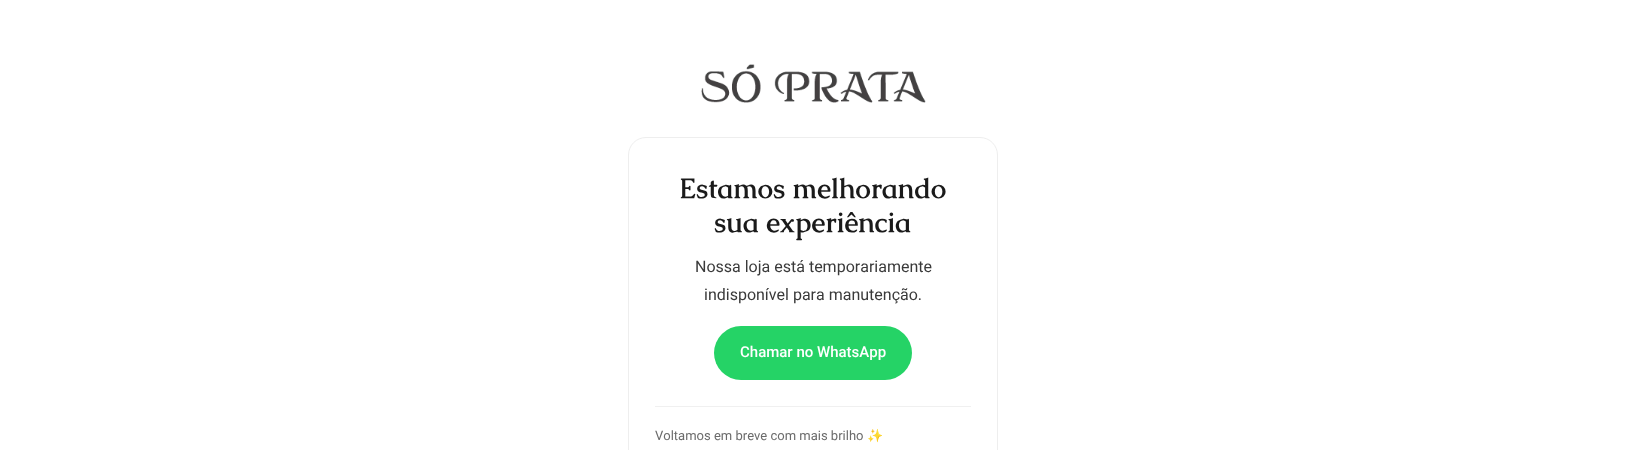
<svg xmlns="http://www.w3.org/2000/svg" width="1626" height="450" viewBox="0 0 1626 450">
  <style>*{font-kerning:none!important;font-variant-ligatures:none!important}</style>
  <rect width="100%" height="100%" fill="#ffffff"/>
  <image x="701" y="64" width="225" height="39" href="img1.png"/>
  <rect x="628.5" y="137.5" width="369" height="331" rx="17.5" fill="none" stroke="#eeeeee"/>
  <text x="679" y="198" font-family="Caudex" font-size="28" font-weight="bold" fill="#1a1a1a">Estamos melhorando</text>
  <text x="714" y="232" font-family="Caudex" font-size="28" font-weight="bold" fill="#1a1a1a">sua experiência</text>
  <text x="695" y="272" font-family="Roboto" font-size="16" fill="#3a3a3a">Nossa loja está temporariamente</text>
  <text x="704" y="300" font-family="Roboto" font-size="16" fill="#3a3a3a">indisponível para manutenção.</text>
  <rect x="714" y="326" width="198" height="54" rx="27" fill="#25d366"/>
  <text x="740" y="357" font-family="Roboto" font-size="15" font-weight="500" fill="#ffffff">Chamar no WhatsApp</text>
  <rect x="655" y="406" width="316" height="1" fill="#f0f0f0"/>
  <text x="655" y="440" font-family="Roboto" font-size="13" fill="#6b6b6b">Voltamos em breve com mais brilho</text>
  <text x="867" y="440" font-family="Noto Color Emoji" font-size="13" fill="#6b6b6b">✨</text>
</svg>
